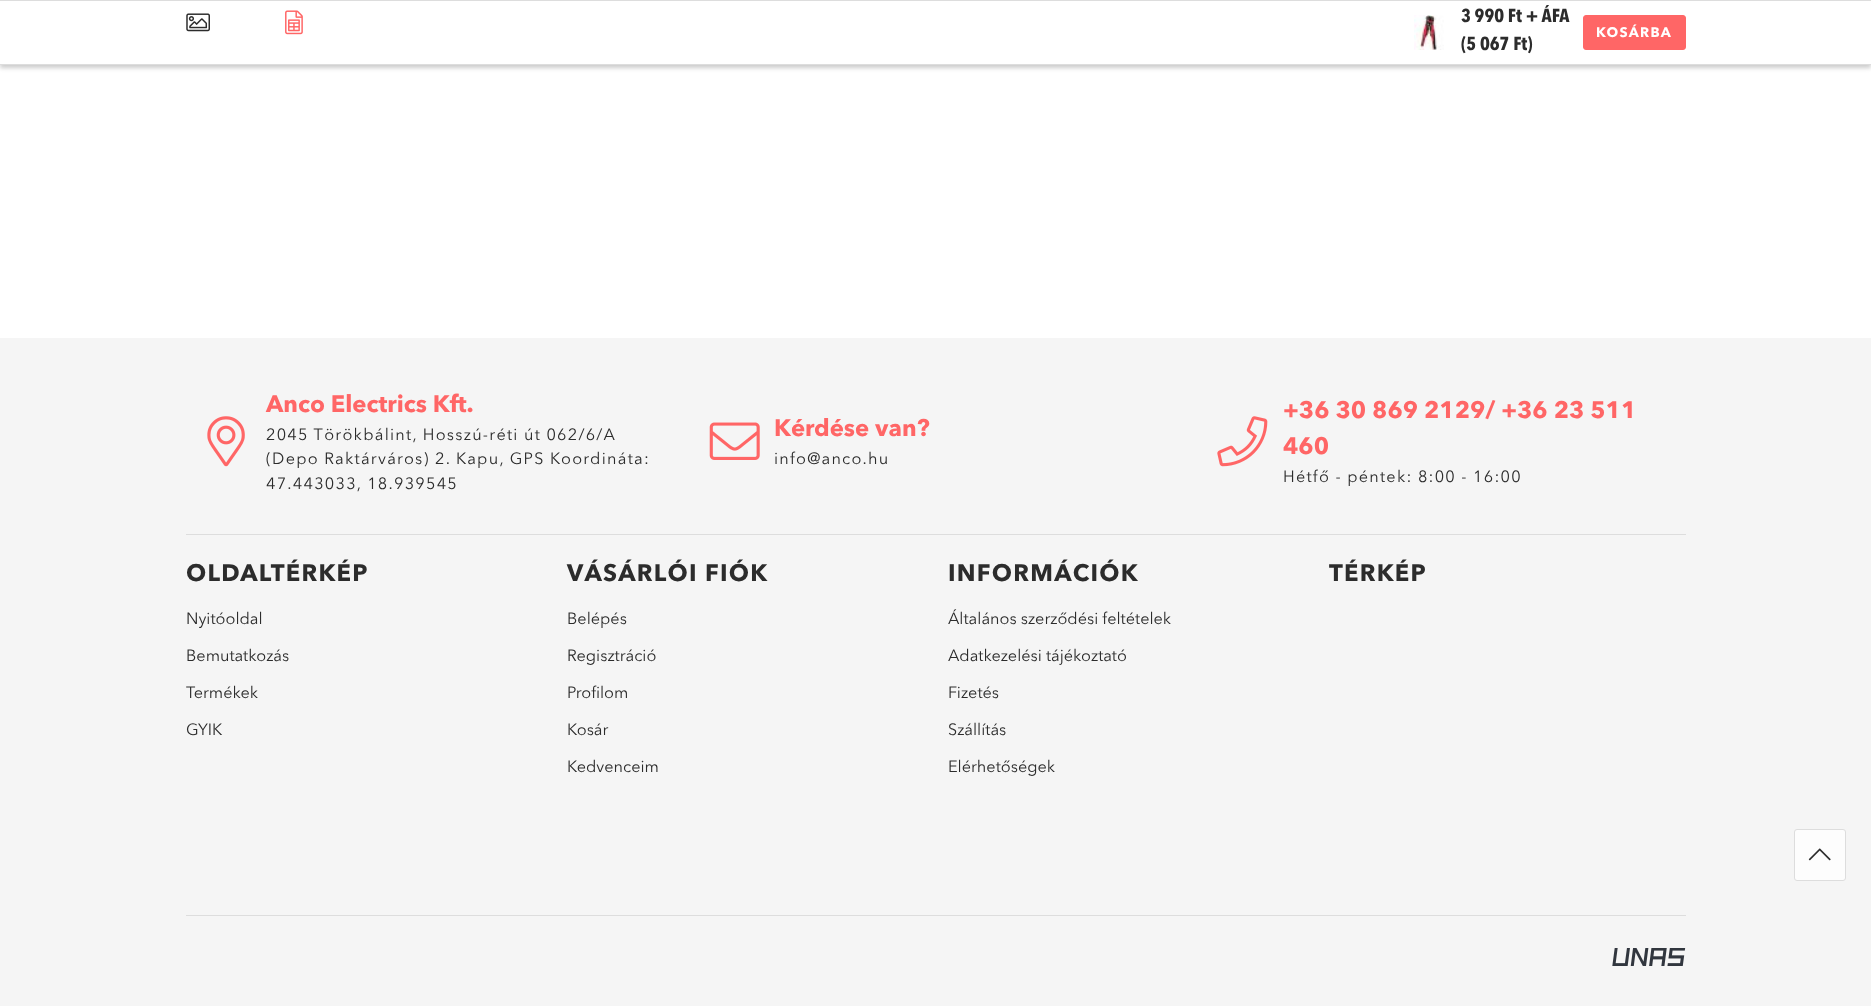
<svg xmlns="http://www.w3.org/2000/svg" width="1871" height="1006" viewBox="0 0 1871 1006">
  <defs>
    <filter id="blur1" x="-50%" y="-200%" width="200%" height="500%"><feGaussianBlur stdDeviation="2"/></filter>
  </defs>
  <rect width="100%" height="100%" fill="#ffffff"/>
  <rect x="0" y="3" width="1871" height="65" fill="#000000" fill-opacity="0.2" filter="url(#blur1)"/>
  <rect x="0" y="1" width="1871" height="63" fill="#ffffff"/>
  <rect x="0" y="0" width="1871" height="1" fill="#dddddd"/>
  <rect x="0" y="64" width="1871" height="1" fill="#dddddd"/>
  <image x="186" y="13" width="24" height="19" href="img1.png"/>
  <image x="285" y="10" width="18" height="25" href="img2.png"/>
  <image x="1414" y="15" width="30" height="35" href="img3.png"/>
  <text x="1461" y="22" font-family="Avenir Next" font-size="18.75" font-weight="bold" fill="#2c2c2c">3 990 Ft + ÁFA</text>
  <text x="1461" y="50" font-family="Avenir Next" font-size="18.75" font-weight="bold" fill="#2c2c2c">(5 067 Ft)</text>
  <rect x="1583.5" y="15.5" width="102" height="34" rx="2.5" fill="#ff6666" stroke="#ff6666"/>
  <text x="1596" y="37" font-family="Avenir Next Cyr" font-size="13.75" font-weight="bold" letter-spacing="1.25" fill="#ffffff">KOSÁRBA</text>
  <rect x="0" y="338" width="1871" height="668" fill="#f5f5f5"/>
  <image x="207" y="416" width="38" height="51" href="img4.png"/>
  <text x="266" y="412" font-family="Avenir Next Cyr" font-size="23.75" font-weight="bold" fill="#ff6666">Anco Electrics Kft.</text>
  <text x="266" y="440" font-family="Avenir Next Cyr" font-size="16.25" letter-spacing="1.25" fill="#2c2c2c">2045 Törökbálint, Hosszú-réti út 062/6/A</text>
  <text x="266" y="464" font-family="Avenir Next Cyr" font-size="16.25" letter-spacing="1.25" fill="#2c2c2c">(Depo Raktárváros) 2. Kapu, GPS Koordináta:</text>
  <text x="266" y="489" font-family="Avenir Next Cyr" font-size="16.25" letter-spacing="1.25" fill="#2c2c2c">47.443033, 18.939545</text>
  <image x="709" y="422" width="51" height="38" href="img5.png"/>
  <text x="774" y="436" font-family="Avenir Next Cyr" font-size="23.75" font-weight="bold" fill="#ff6666">Kérdése van?</text>
  <text x="774" y="464" font-family="Avenir Next Cyr" font-size="16.25" letter-spacing="1.25" fill="#2c2c2c">info@anco.hu</text>
  <image x="1217" y="416" width="51" height="51" href="img6.png"/>
  <text x="1283" y="418" font-family="Avenir Next Cyr" font-size="23.75" font-weight="bold" fill="#ff6666">+36 30 869 2129/ +36 23 511</text>
  <text x="1283" y="454" font-family="Avenir Next Cyr" font-size="23.75" font-weight="bold" fill="#ff6666">460</text>
  <text x="1283" y="482" font-family="Avenir Next Cyr" font-size="16.25" letter-spacing="1.25" fill="#2c2c2c">Hétfő - péntek: 8:00 - 16:00</text>
  <rect x="186" y="534" width="1500" height="1" fill="#dddddd"/>
  <text x="186" y="581" font-family="Avenir Next Cyr" font-size="23.75" font-weight="bold" letter-spacing="1.25" fill="#2c2c2c">OLDALTÉRKÉP</text>
  <text x="186" y="624" font-family="Avenir Next Cyr" font-size="16.25" fill="#2c2c2c">Nyitóoldal</text>
  <text x="186" y="661" font-family="Avenir Next Cyr" font-size="16.25" fill="#2c2c2c">Bemutatkozás</text>
  <text x="186" y="698" font-family="Avenir Next Cyr" font-size="16.25" fill="#2c2c2c">Termékek</text>
  <text x="186" y="735" font-family="Avenir Next Cyr" font-size="16.25" fill="#2c2c2c">GYIK</text>
  <text x="567" y="581" font-family="Avenir Next Cyr" font-size="23.75" font-weight="bold" letter-spacing="1.25" fill="#2c2c2c">VÁSÁRLÓI FIÓK</text>
  <text x="567" y="624" font-family="Avenir Next Cyr" font-size="16.25" fill="#2c2c2c">Belépés</text>
  <text x="567" y="661" font-family="Avenir Next Cyr" font-size="16.25" fill="#2c2c2c">Regisztráció</text>
  <text x="567" y="698" font-family="Avenir Next Cyr" font-size="16.25" fill="#2c2c2c">Profilom</text>
  <text x="567" y="735" font-family="Avenir Next Cyr" font-size="16.25" fill="#2c2c2c">Kosár</text>
  <text x="567" y="772" font-family="Avenir Next Cyr" font-size="16.25" fill="#2c2c2c">Kedvenceim</text>
  <text x="948" y="581" font-family="Avenir Next Cyr" font-size="23.75" font-weight="bold" letter-spacing="1.25" fill="#2c2c2c">INFORMÁCIÓK</text>
  <text x="948" y="624" font-family="Avenir Next Cyr" font-size="16.25" fill="#2c2c2c">Általános szerződési feltételek</text>
  <text x="948" y="661" font-family="Avenir Next Cyr" font-size="16.25" fill="#2c2c2c">Adatkezelési tájékoztató</text>
  <text x="948" y="698" font-family="Avenir Next Cyr" font-size="16.25" fill="#2c2c2c">Fizetés</text>
  <text x="948" y="735" font-family="Avenir Next Cyr" font-size="16.25" fill="#2c2c2c">Szállítás</text>
  <text x="948" y="772" font-family="Avenir Next Cyr" font-size="16.25" fill="#2c2c2c">Elérhetőségek</text>
  <text x="1329" y="581" font-family="Avenir Next Cyr" font-size="23.75" font-weight="bold" letter-spacing="1.25" fill="#2c2c2c">TÉRKÉP</text>
  <rect x="186" y="915" width="1500" height="1" fill="#dddddd"/>
  <image x="1612" y="948" width="74" height="18" href="img7.png"/>
  <rect x="1794.5" y="829.5" width="51" height="51" rx="2.5" fill="#fdfdfd" stroke="#dddddd"/>
  <image x="1808" y="848" width="23" height="13" href="img8.png"/>
</svg>
